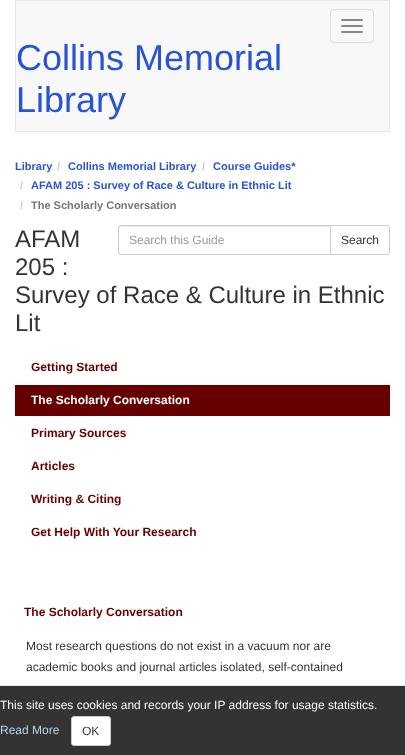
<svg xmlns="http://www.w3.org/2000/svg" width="405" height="755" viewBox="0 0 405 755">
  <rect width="100%" height="100%" fill="#ffffff"/>
  <rect x="15.5" y="0.5" width="374" height="131" fill="#f8f8f8" stroke="#e7e7e7"/>
  <rect x="330.5" y="9.5" width="43" height="33" rx="3.5" fill="none" stroke="#dddddd"/>
  <rect x="341" y="19" width="22" height="2" rx="1" fill="#888888"/>
  <rect x="341" y="25" width="22" height="2" rx="1" fill="#888888"/>
  <rect x="341" y="31" width="22" height="2" rx="1" fill="#888888"/>
  <text x="16" y="70" font-family="Liberation Sans" font-size="36" fill="#2954d1">Collins Memorial</text>
  <text x="16" y="112" font-family="Liberation Sans" font-size="36" fill="#2954d1">Library</text>
  <text x="15" y="170" font-family="Liberation Sans" font-size="11" font-weight="bold" fill="#2954d1">Library</text>
  <text x="57" y="170" font-family="Liberation Sans" font-size="11" font-weight="bold" fill="#cccccc">/</text>
  <text x="68" y="170" font-family="Liberation Sans" font-size="11" font-weight="bold" fill="#2954d1">Collins Memorial Library</text>
  <text x="202" y="170" font-family="Liberation Sans" font-size="11" font-weight="bold" fill="#cccccc">/</text>
  <text x="213" y="170" font-family="Liberation Sans" font-size="11" font-weight="bold" fill="#2954d1">Course Guides*</text>
  <text x="20" y="189" font-family="Liberation Sans" font-size="11" font-weight="bold" fill="#cccccc">/</text>
  <text x="31" y="189" font-family="Liberation Sans" font-size="11" font-weight="bold" fill="#2954d1">AFAM 205 : Survey of Race &amp; Culture in Ethnic Lit</text>
  <text x="20" y="209" font-family="Liberation Sans" font-size="11" font-weight="bold" fill="#cccccc">/</text>
  <text x="31" y="209" font-family="Liberation Sans" font-size="11" font-weight="bold" fill="#767676">The Scholarly Conversation</text>
  <text x="15" y="247" font-family="Liberation Sans" font-size="24" fill="#333333">AFAM</text>
  <text x="15" y="275" font-family="Liberation Sans" font-size="24" fill="#333333">205 :</text>
  <text x="15" y="303" font-family="Liberation Sans" font-size="24" fill="#333333">Survey of Race &amp; Culture in Ethnic</text>
  <text x="15" y="331" font-family="Liberation Sans" font-size="24" fill="#333333">Lit</text>
  <path d="M121 227H330V226H121L120 227L119 229C119 228 120 227 121 227Z" fill="#ececec"/>
  <path d="M121 225.5H330.5V254.5H121C119.5 254.5 118.5 253.5 118.5 252V228C118.5 226.5 119.5 225.5 121 225.5Z" fill="none" stroke="#cccccc"/>
  <text x="129" y="244" font-family="Liberation Sans" font-size="12" fill="#999999">Search this Guide</text>
  <path d="M330.5 225.5H387C388.5 225.5 389.5 226.5 389.5 228V252C389.5 253.5 388.5 254.5 387 254.5H330.5Z" fill="#ffffff" stroke="#cccccc"/>
  <text x="341" y="244" font-family="Liberation Sans" font-size="12" fill="#333333">Search</text>
  <text x="31" y="371" font-family="Liberation Sans" font-size="12" font-weight="bold" fill="#660000">Getting Started</text>
  <rect x="15" y="385" width="375" height="31" fill="#660000"/>
  <text x="31" y="404" font-family="Liberation Sans" font-size="12" font-weight="bold" fill="#ffffff">The Scholarly Conversation</text>
  <text x="31" y="437" font-family="Liberation Sans" font-size="12" font-weight="bold" fill="#660000">Primary Sources</text>
  <text x="31" y="470" font-family="Liberation Sans" font-size="12" font-weight="bold" fill="#660000">Articles</text>
  <text x="31" y="503" font-family="Liberation Sans" font-size="12" font-weight="bold" fill="#660000">Writing &amp; Citing</text>
  <text x="31" y="536" font-family="Liberation Sans" font-size="12" font-weight="bold" fill="#660000">Get Help With Your Research</text>
  <text x="24" y="616" font-family="Liberation Sans" font-size="12" font-weight="bold" fill="#660000">The Scholarly Conversation</text>
  <text x="26" y="650" font-family="Liberation Sans" font-size="12" fill="#333333">Most research questions do not exist in a vacuum nor are</text>
  <text x="26" y="671" font-family="Liberation Sans" font-size="12" fill="#333333">academic books and journal articles isolated, self-contained</text>
  <rect x="0" y="686" width="405" height="69" fill="#333333"/>
  <rect x="0" y="685" width="405" height="1" fill="#e7e7e7"/>
  <text x="0" y="709" font-family="Liberation Sans" font-size="12" fill="#f8f8f8">This site uses cookies and records your IP address for usage statistics.</text>
  <text x="0" y="734" font-family="Liberation Sans" font-size="12" fill="#b9d3eb">Read More</text>
  <rect x="71.5" y="716.5" width="39" height="29" rx="2.5" fill="#ffffff" stroke="#cccccc"/>
  <text x="82" y="735" font-family="Liberation Sans" font-size="12" fill="#333333">OK</text>
</svg>
